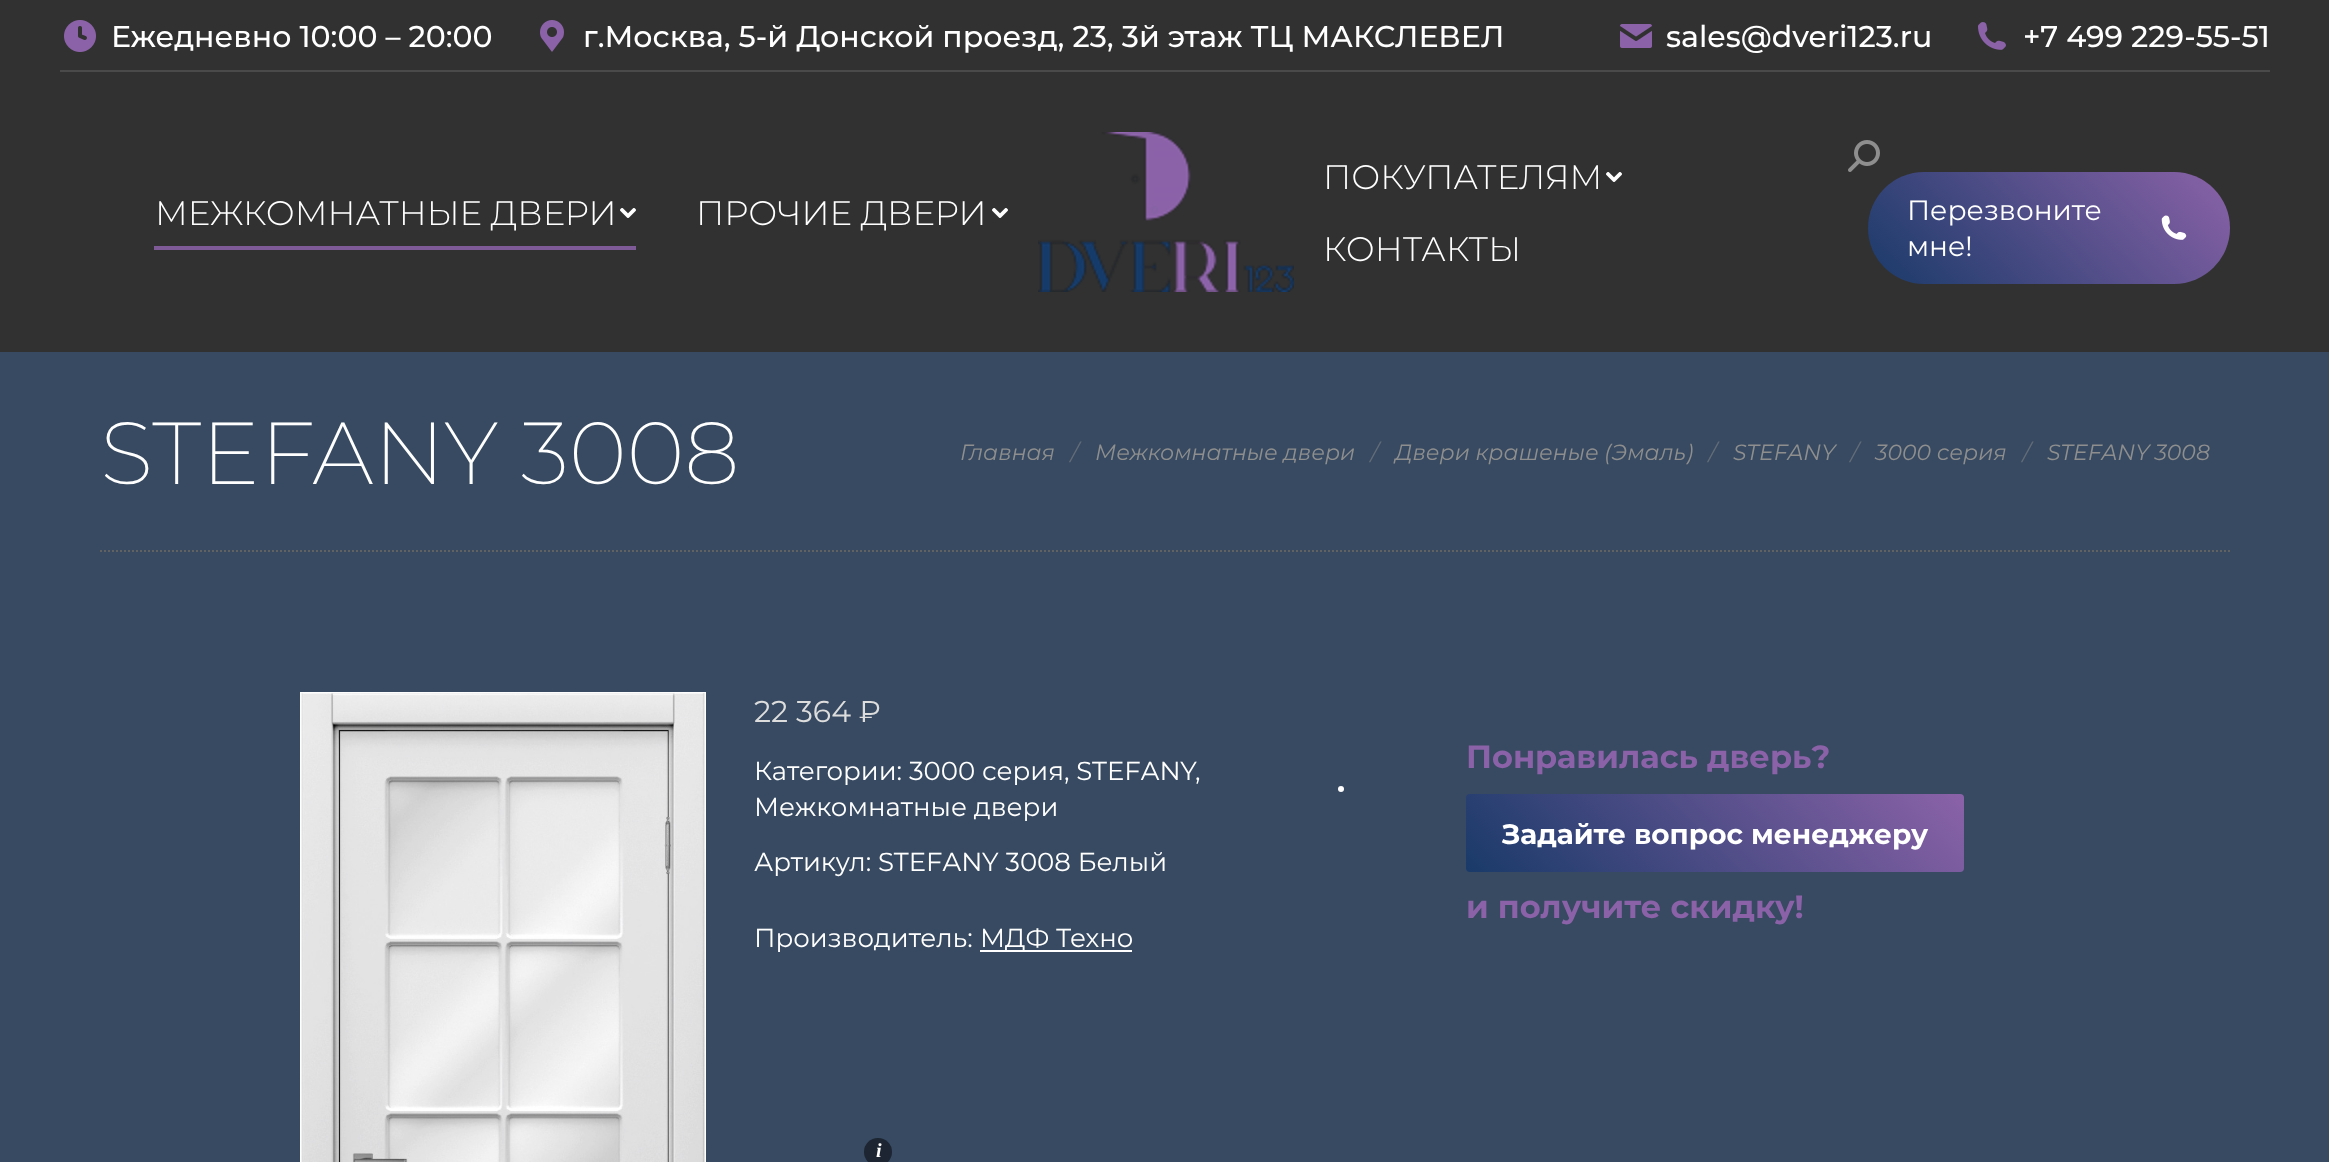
<svg xmlns="http://www.w3.org/2000/svg" width="2329" height="1162" viewBox="0 0 2329 1162">
  <defs>
    <linearGradient id="g1" gradientUnits="userSpaceOnUse" x1="2168" y1="109" x2="1931" y2="347"><stop offset="0" stop-color="#8b62a8"/><stop offset="1" stop-color="#193a69"/></linearGradient>
    <linearGradient id="g2" gradientUnits="userSpaceOnUse" x1="1859" y1="689" x2="1571" y2="977"><stop offset="0" stop-color="#8b62a8"/><stop offset="1" stop-color="#193a69"/></linearGradient>
  </defs>
  <rect width="100%" height="100%" fill="#374a61"/>
  <rect x="0" y="0" width="2329" height="352" fill="#313131"/>
  <image x="64" y="20" width="32" height="32" href="img1.png"/>
  <text x="111" y="47" font-family="Montserrat" font-size="30" font-weight="500" fill="#ffffff">Ежедневно 10:00 – 20:00</text>
  <image x="540" y="20" width="24" height="32" href="img2.png"/>
  <text x="583" y="47" font-family="Montserrat" font-size="30" font-weight="500" fill="#ffffff">г.Москва, 5-й Донской проезд, 23, 3й этаж ТЦ МАКСЛЕВЕЛ</text>
  <image x="1620" y="24" width="32" height="24" href="img3.png"/>
  <text x="1666" y="47" font-family="Montserrat" font-size="30" font-weight="500" fill="#ffffff">sales@dveri123.ru</text>
  <image x="1978" y="22" width="28" height="28" href="img4.png"/>
  <text x="2023" y="47" font-family="Montserrat" font-size="30" font-weight="500" fill="#ffffff">+7 499 229-55-51</text>
  <rect x="60" y="70" width="2210" height="2" fill="#4a4a4a"/>
  <text x="155" y="225" font-family="Montserrat" font-size="34" font-weight="300" fill="#ffffff">МЕЖКОМНАТНЫЕ ДВЕРИ</text>
  <image x="620" y="208" width="16" height="10" href="img5.png"/>
  <rect x="154" y="246" width="482" height="4" fill="#7e5b96"/>
  <text x="696" y="225" font-family="Montserrat" font-size="34" font-weight="300" fill="#ffffff">ПРОЧИЕ ДВЕРИ</text>
  <image x="992" y="208" width="16" height="10" href="img5.png"/>
  <image x="1038" y="132" width="256" height="160" href="img6.png"/>
  <text x="1323" y="189" font-family="Montserrat" font-size="34" font-weight="300" fill="#ffffff">ПОКУПАТЕЛЯМ</text>
  <image x="1606" y="172" width="16" height="10" href="img5.png"/>
  <text x="1323" y="261" font-family="Montserrat" font-size="34" font-weight="300" fill="#ffffff">КОНТАКТЫ</text>
  <image x="1848" y="140" width="32" height="32" href="img7.png"/>
  <rect x="1868" y="172" width="362" height="112" rx="56" fill="url(#g1)"/>
  <text x="1907" y="220" font-family="Montserrat" font-size="28" fill="#ffffff">Перезвоните</text>
  <text x="1907" y="256" font-family="Montserrat" font-size="28" fill="#ffffff">мне!</text>
  <image x="2161" y="215" width="26" height="25" href="img8.png"/>
  <text x="100" y="484" font-family="Montserrat" font-size="88" font-weight="200" fill="#ffffff">STEFANY 3008</text>
  <text x="960" y="460" font-family="Montserrat" font-size="22" font-weight="100" font-style="italic" fill="#8e8e8e">Главная</text>
  <text x="1071" y="460" font-family="Montserrat" font-size="22" font-weight="100" font-style="italic" fill="#636c78">/</text>
  <text x="1095" y="460" font-family="Montserrat" font-size="22" font-weight="100" font-style="italic" fill="#8e8e8e">Межкомнатные двери</text>
  <text x="1371" y="460" font-family="Montserrat" font-size="22" font-weight="100" font-style="italic" fill="#636c78">/</text>
  <text x="1395" y="460" font-family="Montserrat" font-size="22" font-weight="100" font-style="italic" fill="#8e8e8e">Двери крашеные (Эмаль)</text>
  <text x="1709" y="460" font-family="Montserrat" font-size="22" font-weight="100" font-style="italic" fill="#636c78">/</text>
  <text x="1733" y="460" font-family="Montserrat" font-size="22" font-weight="100" font-style="italic" fill="#8e8e8e">STEFANY</text>
  <text x="1851" y="460" font-family="Montserrat" font-size="22" font-weight="100" font-style="italic" fill="#636c78">/</text>
  <text x="1875" y="460" font-family="Montserrat" font-size="22" font-weight="100" font-style="italic" fill="#8e8e8e">3000 серия</text>
  <text x="2023" y="460" font-family="Montserrat" font-size="22" font-weight="100" font-style="italic" fill="#636c78">/</text>
  <text x="2047" y="460" word-spacing="-1" font-family="Montserrat" font-size="22" font-weight="100" font-style="italic" fill="#8e8e8e">STEFANY 3008</text>
  <path d="M100 551H2230" fill="none" stroke="#616161" stroke-width="2" stroke-dasharray="2 2"/>
  <image x="300" y="692" width="406" height="470" href="img9.png"/>
  <text x="754" y="722" font-family="Montserrat" font-size="30" fill="#dddddd">22 364 ₽</text>
  <text x="754" y="780" font-family="Montserrat" font-size="26" fill="#ffffff">Категории: 3000 серия, STEFANY</text>
  <text x="1195" y="780" font-family="Montserrat" font-size="26" fill="#ffffff">,</text>
  <circle cx="1341" cy="789" r="3" fill="#ffffff"/>
  <text x="754" y="816" font-family="Montserrat" font-size="26" fill="#ffffff">Межкомнатные двери</text>
  <text x="754" y="871" font-family="Montserrat" font-size="26" fill="#ffffff">Артикул:</text>
  <text x="878" y="871" font-family="Montserrat" font-size="26" fill="#ffffff">STEFANY 3008 Белый</text>
  <text x="754" y="947" font-family="Montserrat" font-size="26" fill="#ffffff">Производитель:</text>
  <rect x="980" y="950" width="152" height="2" fill="#ffffff"/>
  <text x="980" y="947" font-family="Montserrat" font-size="26" fill="#ffffff">МДФ Техно</text>
  <text x="1466" y="768" font-family="Montserrat" font-size="32" font-weight="bold" fill="#8b62a8">Понравилась дверь?</text>
  <rect x="1466" y="794" width="498" height="78" rx="4" fill="url(#g2)"/>
  <text x="1502" y="844" font-family="Montserrat" font-size="28" font-weight="bold" fill="#ffffff">Задайте вопрос менеджеру</text>
  <text x="1466" y="918" font-family="Montserrat" font-size="32" font-weight="bold" fill="#8b62a8">и получите скидку!</text>
  <circle cx="878" cy="1152" r="14" fill="#1c2531"/>
  <text x="876" y="1157" font-family="Liberation Serif" font-size="20" font-weight="bold" font-style="italic" fill="#ffffff">i</text>
</svg>
